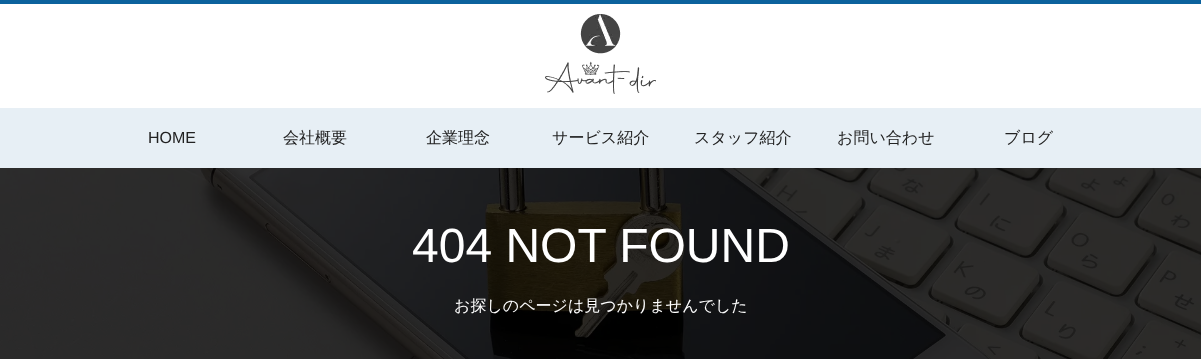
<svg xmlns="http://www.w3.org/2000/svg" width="1201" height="359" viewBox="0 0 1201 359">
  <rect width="100%" height="100%" fill="#ffffff"/>
  <rect x="0" y="0" width="1201" height="4" fill="#0c629d"/>
  <image x="545" y="14" width="111" height="80" href="img1.png"/>
  <rect x="0" y="108" width="1201" height="60" fill="#e7eff5"/>
  <text x="148" y="143" font-family="Liberation Sans" font-size="16" fill="#222222">HOME</text>
  <text x="283" y="143" font-family="WenQuanYi Zen Hei" font-size="16" font-weight="500" fill="#222222">会社概要</text>
  <text x="426" y="143" font-family="WenQuanYi Zen Hei" font-size="16" font-weight="500" fill="#222222">企業理念</text>
  <text x="552" y="143" font-family="WenQuanYi Zen Hei" font-size="16" font-weight="500" fill="#222222">サービス紹介</text>
  <text x="694" y="143" font-family="WenQuanYi Zen Hei" font-size="16" font-weight="500" fill="#222222">スタッフ紹介</text>
  <text x="837" y="143" font-family="WenQuanYi Zen Hei" font-size="16" font-weight="500" fill="#222222">お問い合わせ</text>
  <text x="1004" y="143" font-family="WenQuanYi Zen Hei" font-size="16" font-weight="500" fill="#222222">ブログ</text>
  <image x="0" y="168" width="1201" height="191" href="img2.png"/>
  <text x="412" y="262" font-family="Liberation Sans" font-size="48" fill="#ffffff">404 NOT FOUND</text>
  <text x="454" y="311" font-family="WenQuanYi Zen Hei" font-size="16" font-weight="500" fill="#ffffff">お探しのページは見つかりませんでした</text>
</svg>
